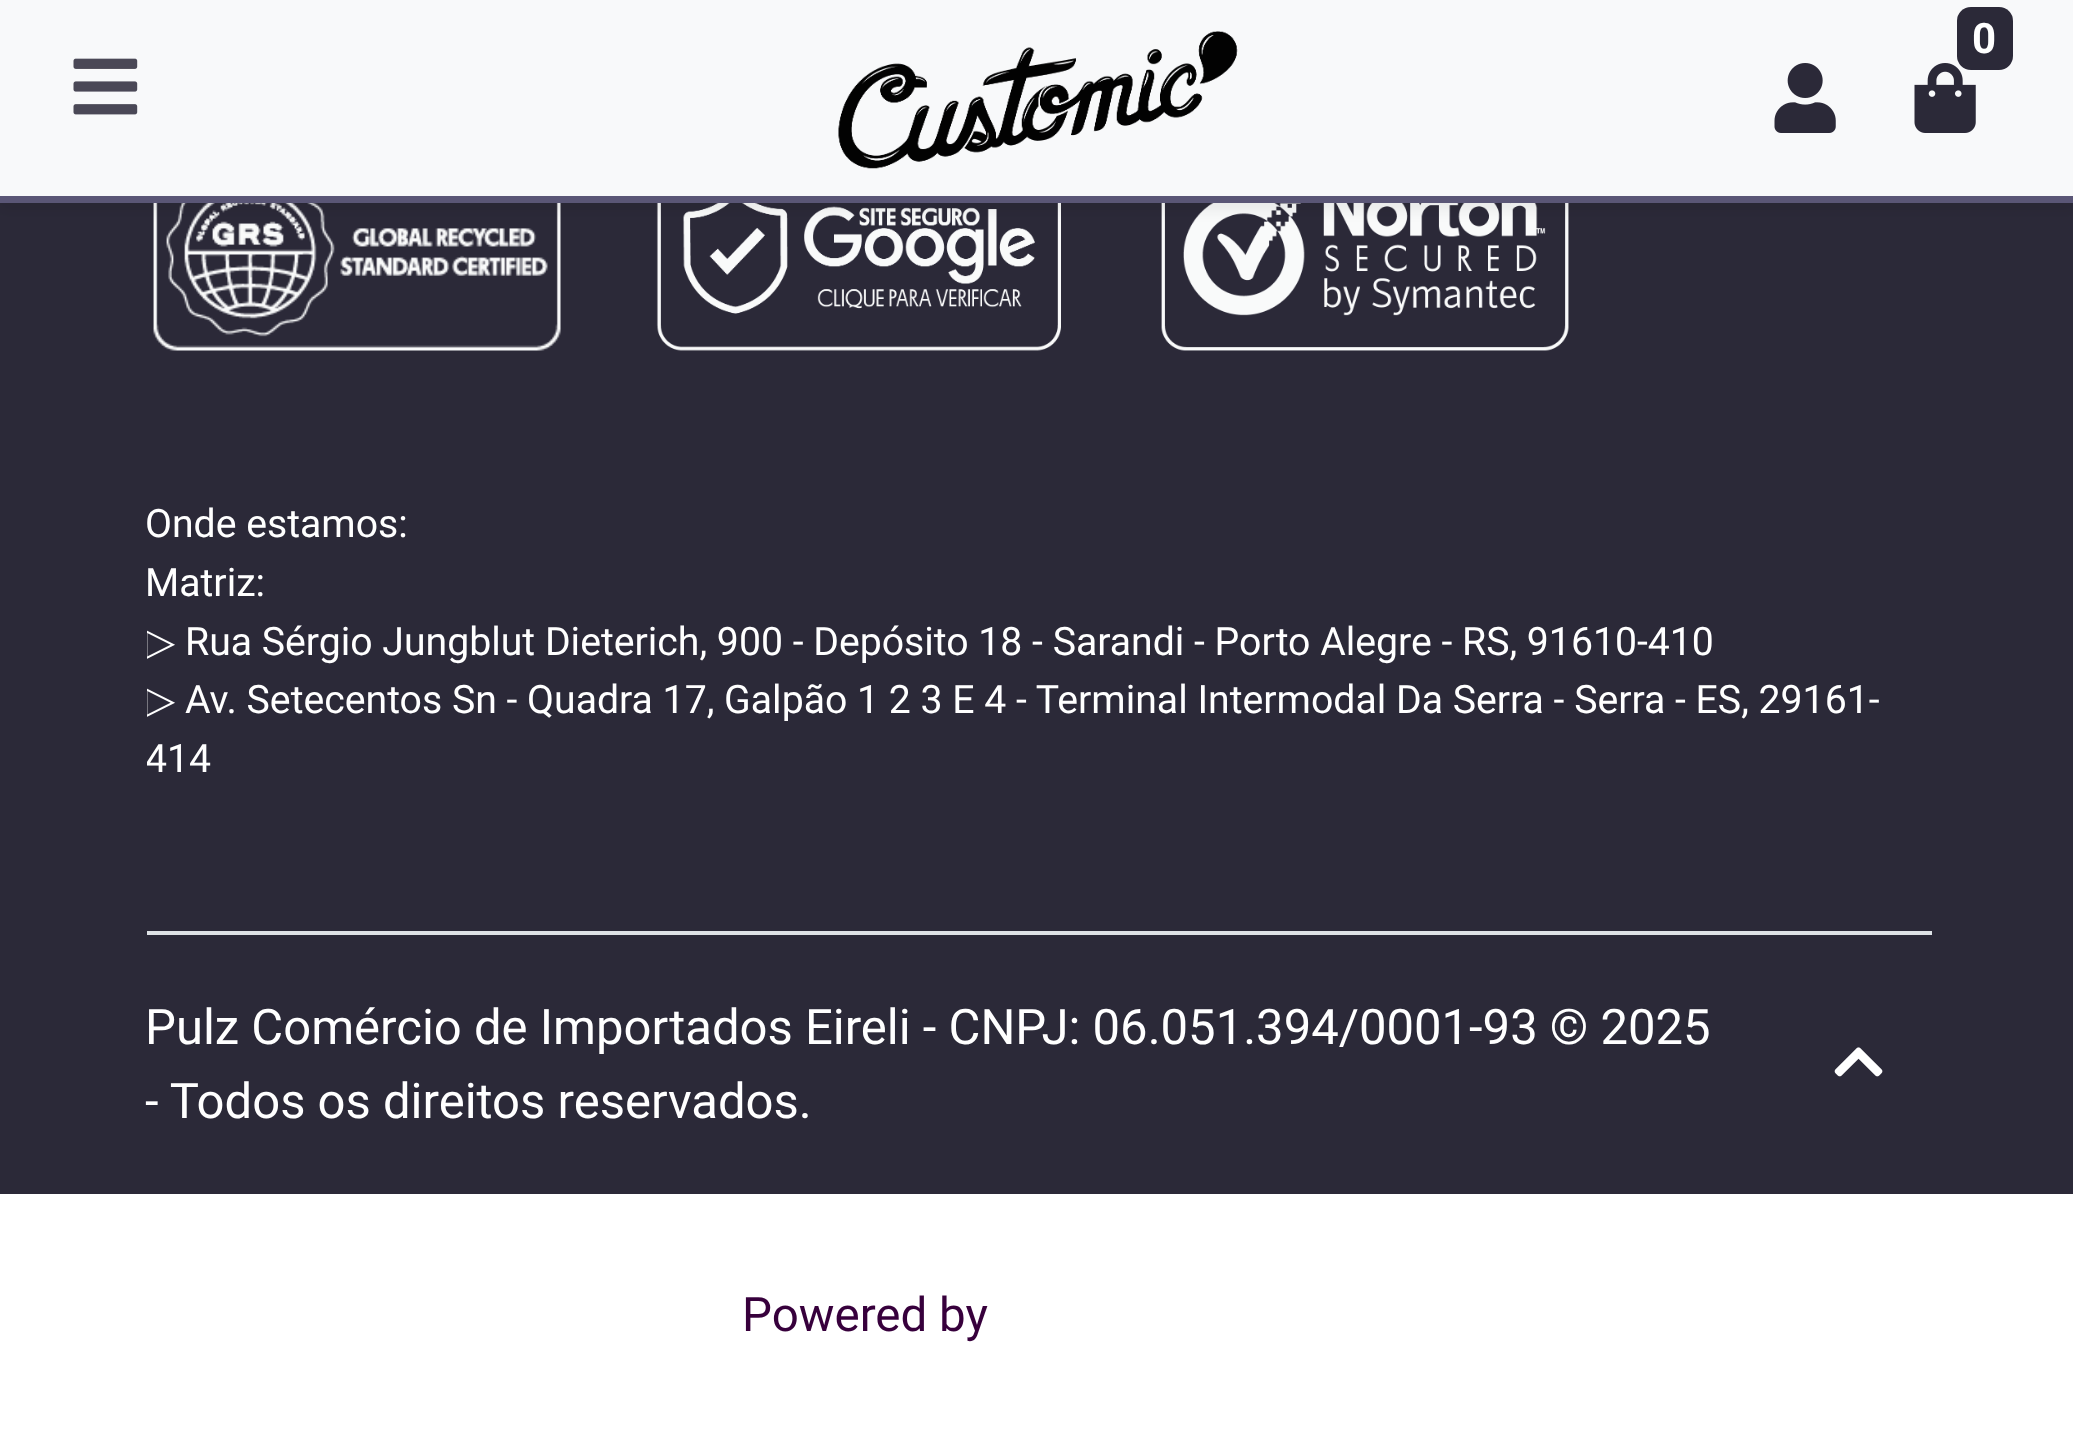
<svg xmlns="http://www.w3.org/2000/svg" width="2073" height="1438" viewBox="0 0 2073 1438">
  <defs>
    <filter id="blur1" x="-50%" y="-200%" width="200%" height="500%"><feGaussianBlur stdDeviation="7"/></filter>
    <clipPath id="clip1"><rect x="147" y="497" width="1785" height="294"/></clipPath>
  </defs>
  <rect width="100%" height="100%" fill="#ffffff"/>
  <rect x="0" y="203" width="2073" height="991" fill="#2b2938"/>
  <image x="153" y="203" width="408" height="148" href="img5.png"/>
  <image x="656" y="203" width="405" height="148" href="img6.png"/>
  <image x="1161" y="203" width="408" height="148" href="img7.png"/>
  <rect x="0" y="7" width="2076" height="203" fill="#000000" fill-opacity="0.07" filter="url(#blur1)"/>
  <rect x="0" y="0" width="2073" height="196" fill="#f8f9fa"/>
  <rect x="0" y="196" width="2073" height="7" fill="#5a5676"/>
  <image x="73" y="58" width="65" height="57" href="img1.png"/>
  <image x="838" y="31" width="400" height="138" href="img2.png"/>
  <image x="1914" y="63" width="62" height="70" href="img3.png"/>
  <rect x="1957" y="7" width="56" height="63" rx="14" fill="#2b2938"/>
  <text x="1972" y="53" font-family="Roboto" font-size="42" font-weight="bold" fill="#ffffff">0</text>
  <image x="1774" y="63" width="62" height="70" href="img4.png"/>
  <text x="145" y="537" font-family="Roboto" font-size="39.2" fill="#ffffff">Onde estamos:</text>
  <text x="145" y="596" font-family="Roboto" font-size="39.2" fill="#ffffff">Matriz:</text>
  <g clip-path="url(#clip1)">
    <text x="145" y="655" font-family="DejaVu Sans" font-size="39.2" fill="#ffffff">▷</text>
  </g>
  <text x="185" y="655" font-family="Roboto" font-size="39.2" fill="#ffffff">Rua Sérgio Jungblut Dieterich, 900 - Depósito 18 - Sarandi - Porto Alegre - RS, 91610-410</text>
  <g clip-path="url(#clip1)">
    <text x="145" y="713" font-family="DejaVu Sans" font-size="39.2" fill="#ffffff">▷</text>
  </g>
  <text x="185" y="713" font-family="Roboto" font-size="39.2" fill="#ffffff">Av. Setecentos Sn - Quadra 17, Galpão 1 2 3 E 4 - Terminal Intermodal Da Serra - Serra - ES, 29161-</text>
  <g clip-path="url(#clip1)">
    <text x="145" y="772" font-family="Roboto" font-size="39.2" fill="#ffffff">414</text>
  </g>
  <rect x="147" y="931" width="1785" height="4" fill="#dee2e6"/>
  <text x="145" y="1044" font-family="Roboto" font-size="49" fill="#ffffff">Pulz Comércio de Importados Eireli - CNPJ: 06.051.394/0001-93 © 2025</text>
  <text x="145" y="1118" font-family="Roboto" font-size="49" fill="#ffffff">- Todos os direitos reservados.</text>
  <image x="1834" y="1047" width="49" height="30" href="img8.png"/>
  <text x="742" y="1331" font-family="Roboto" font-size="47.5" fill="#37003c">Powered by</text>
</svg>
